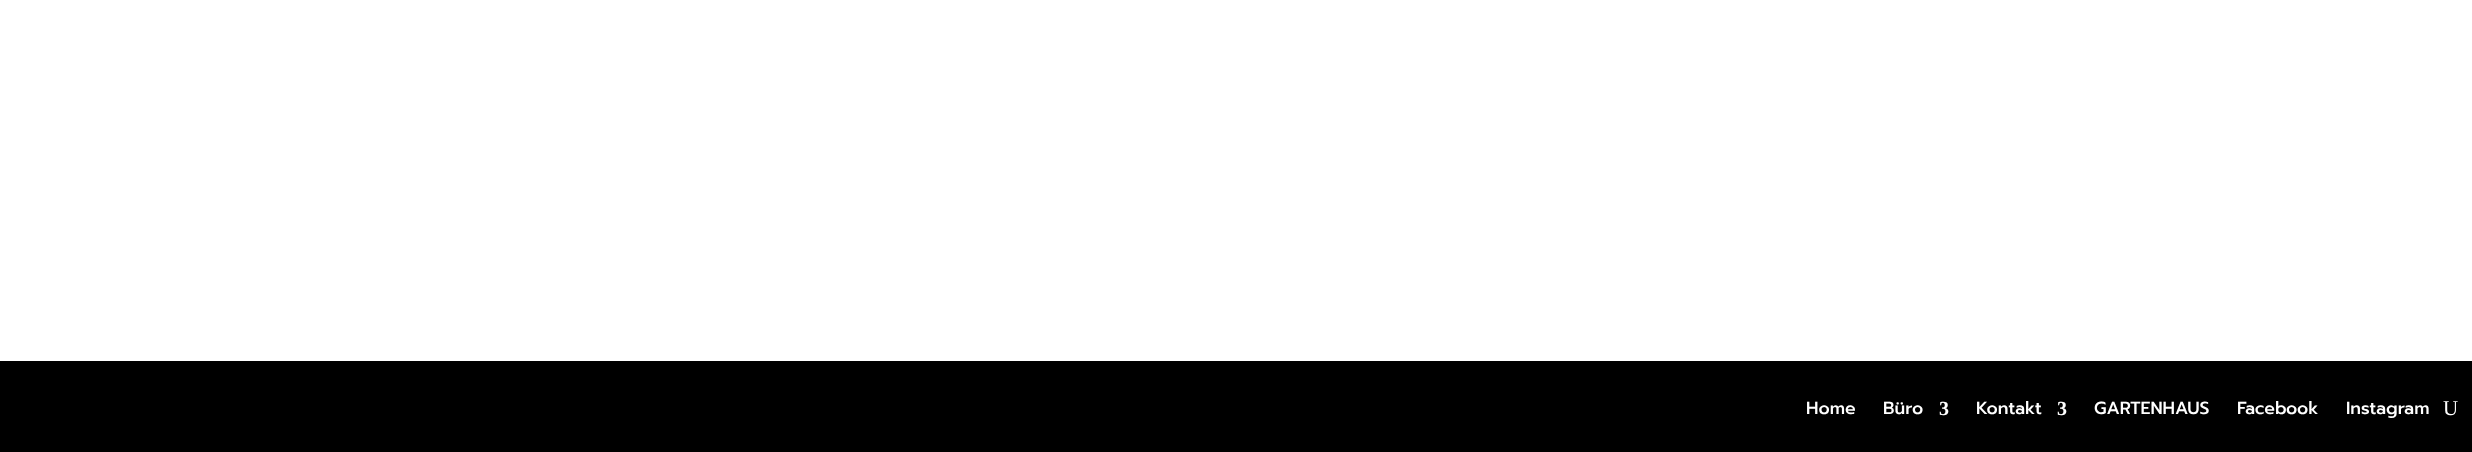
<svg xmlns="http://www.w3.org/2000/svg" width="2472" height="452" viewBox="0 0 2472 452">
  <rect width="100%" height="100%" fill="#ffffff"/>
  <rect x="0" y="361" width="2472" height="91" fill="#000000"/>
  <text x="1806" y="414" font-family="Prompt" font-size="17.5" font-weight="500" fill="#ffffff">Home</text>
  <text x="1883" y="414" font-family="Prompt" font-size="17.5" font-weight="500" fill="#ffffff">Büro</text>
  <text x="1939" y="415" font-family="Liberation Serif" font-size="20" font-weight="bold" fill="#ffffff">3</text>
  <text x="1976" y="414" font-family="Prompt" font-size="17.5" font-weight="500" fill="#ffffff">Kontakt</text>
  <text x="2057" y="415" font-family="Liberation Serif" font-size="20" font-weight="bold" fill="#ffffff">3</text>
  <text x="2094" y="414" font-family="Prompt" font-size="17.5" font-weight="500" fill="#ffffff">GARTENHAUS</text>
  <text x="2237" y="414" font-family="Prompt" font-size="17.5" font-weight="500" fill="#ffffff">Facebook</text>
  <text x="2346" y="414" font-family="Prompt" font-size="17.5" font-weight="500" fill="#ffffff">Instagram</text>
  <text x="2443" y="415" font-family="Liberation Serif" font-size="21" fill="#ffffff">U</text>
</svg>
